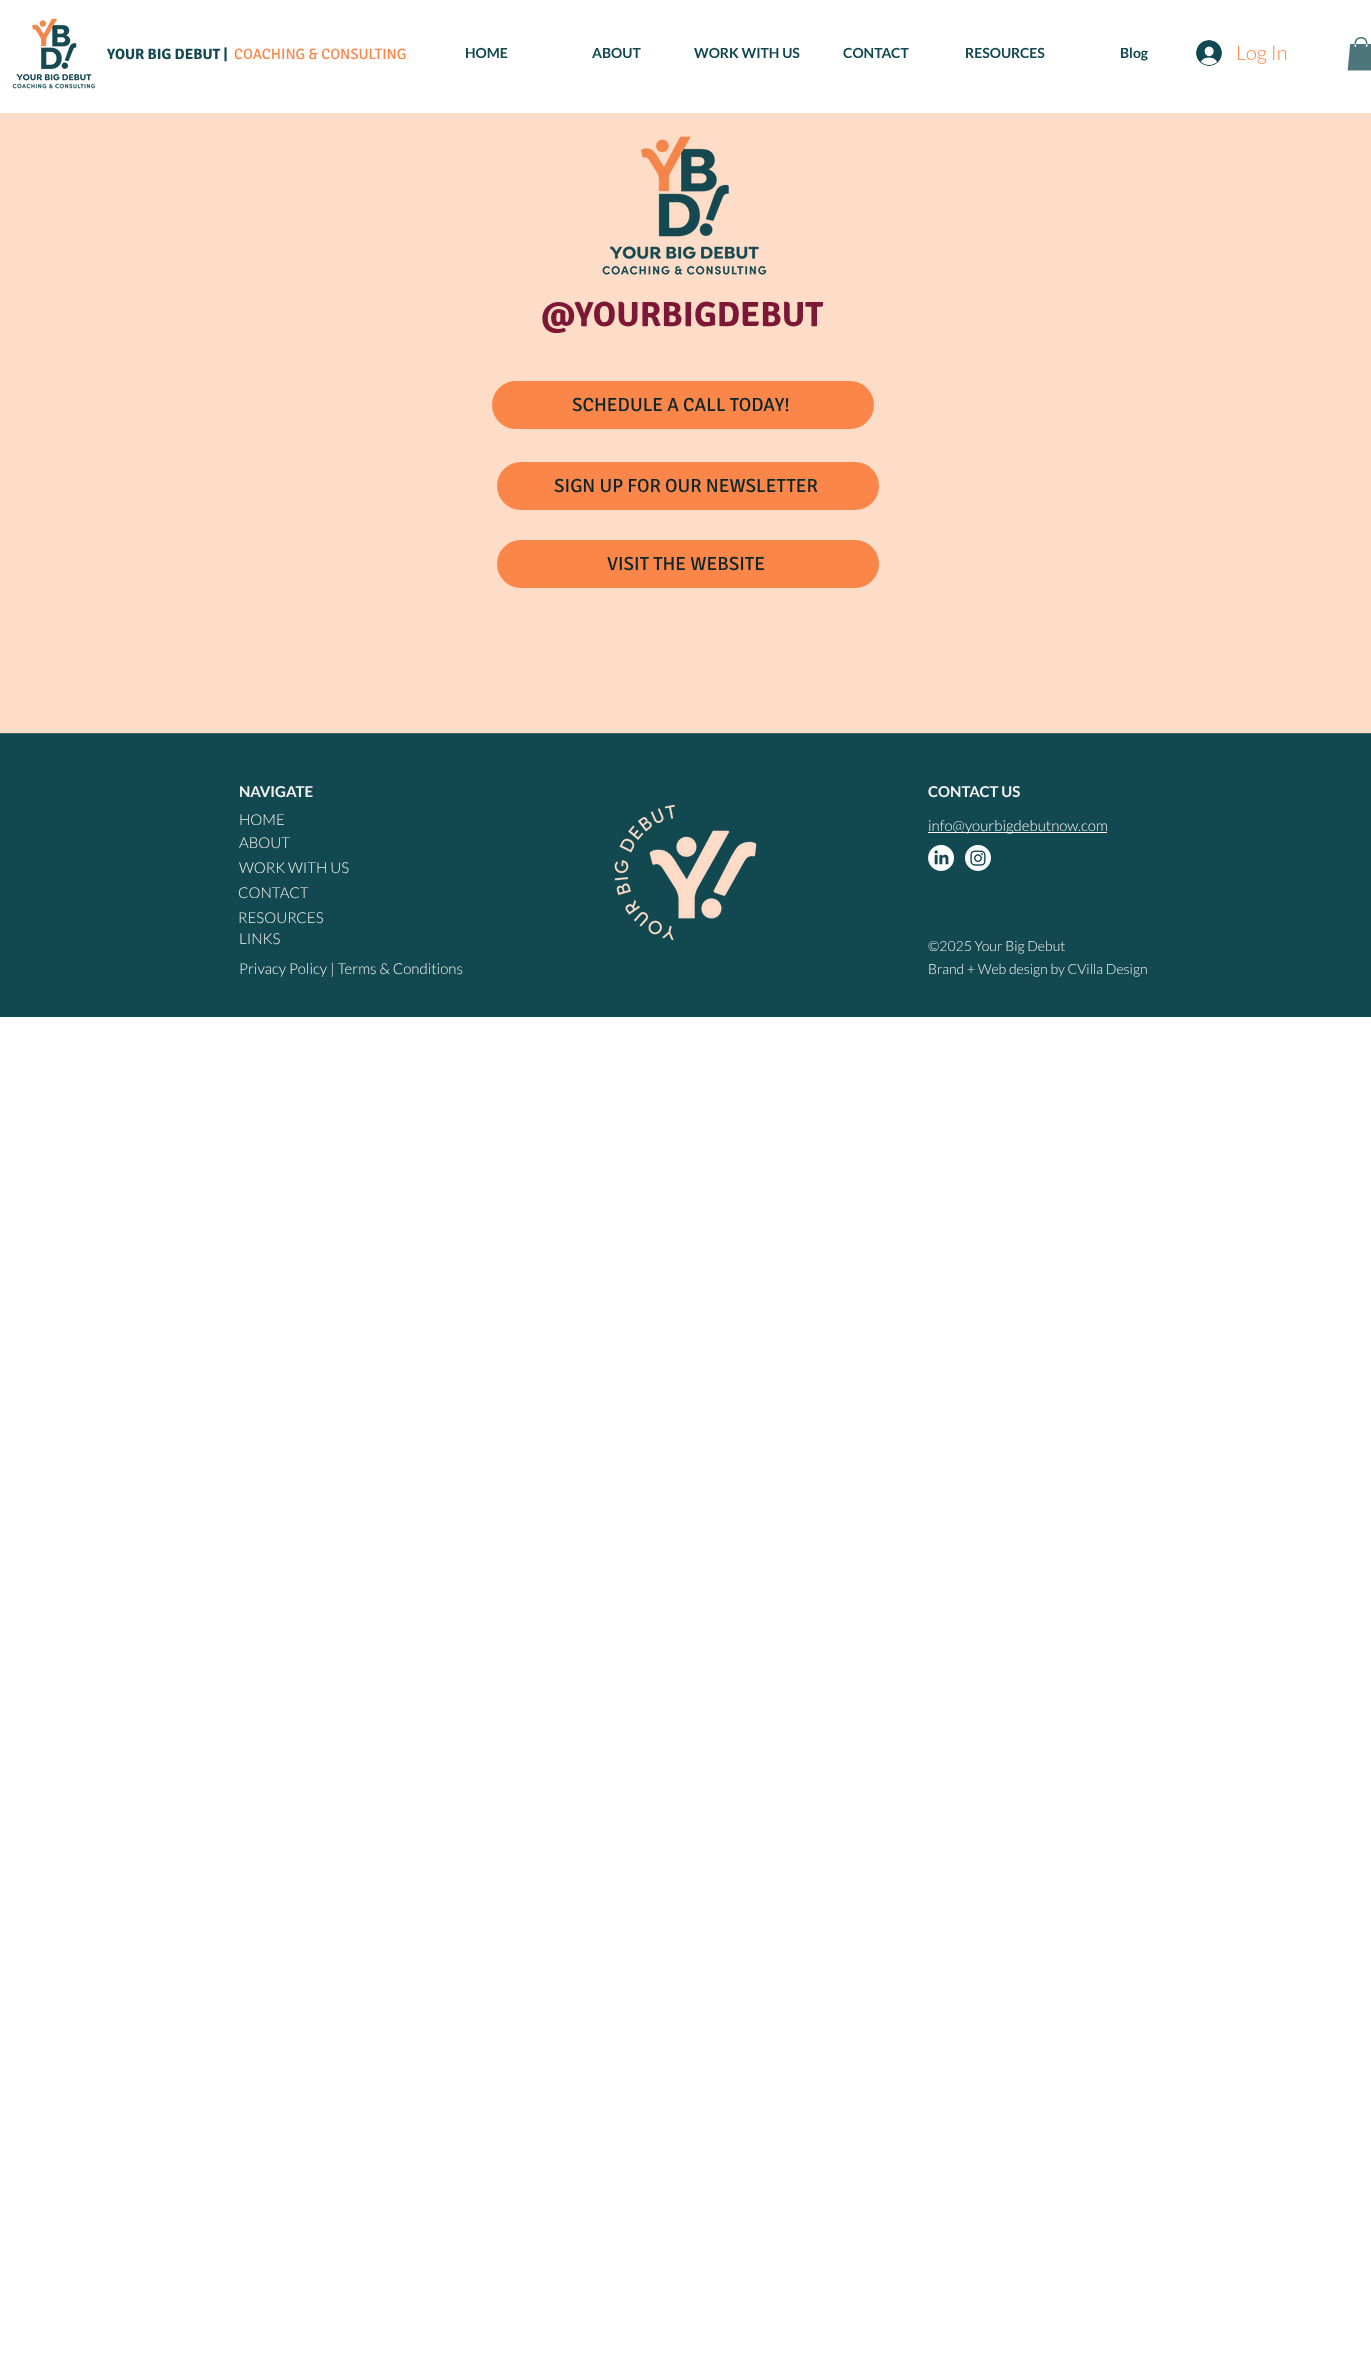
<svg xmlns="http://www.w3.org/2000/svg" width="1371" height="2353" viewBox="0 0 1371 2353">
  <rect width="100%" height="100%" fill="#ffffff"/>
  <image x="12" y="18" width="84" height="71" href="img1.png"/>
  <text x="107" y="59" font-family="Signika" font-size="15" font-weight="bold" fill="#124850">YOUR BIG DEBUT |</text>
  <text x="234" y="59" font-family="Signika" font-size="15" fill="#fa8649">COACHING &amp; CONSULTING</text>
  <text x="465" y="58" font-family="Lato" font-size="14" font-weight="bold" fill="#124850">HOME</text>
  <text x="592" y="58" font-family="Lato" font-size="14" font-weight="bold" fill="#124850">ABOUT</text>
  <text x="694" y="58" font-family="Lato" font-size="14" font-weight="bold" fill="#124850">WORK WITH US</text>
  <text x="843" y="58" font-family="Lato" font-size="14" font-weight="bold" fill="#124850">CONTACT</text>
  <text x="965" y="58" font-family="Lato" font-size="14" font-weight="bold" fill="#124850">RESOURCES</text>
  <text x="1120" y="58" font-family="Lato" font-size="14" font-weight="bold" fill="#124850">Blog</text>
  <image x="1196" y="40" width="26" height="26" href="img2.png"/>
  <text x="1236" y="60" font-family="Lato" font-size="20" font-weight="300" fill="#fa8649">Log In</text>
  <image x="1347" y="37" width="24" height="34" href="img3.png"/>
  <rect x="0" y="113" width="1371" height="620" fill="#fddcc8"/>
  <image x="602" y="136" width="165" height="139" href="img4.png"/>
  <text x="541" y="326" font-family="Signika" font-size="35" font-weight="bold" fill="#7d1736">@YOURBIGDEBUT</text>
  <rect x="492" y="381" width="382" height="48" rx="24" fill="#fa8649"/>
  <text x="572" y="411" font-family="Signika" font-size="19" fill="#092428">SCHEDULE A CALL TODAY!</text>
  <rect x="497" y="462" width="382" height="48" rx="24" fill="#fa8649"/>
  <text x="554" y="492" font-family="Signika" font-size="19" fill="#092428">SIGN UP FOR OUR NEWSLETTER</text>
  <rect x="497" y="540" width="382" height="48" rx="24" fill="#fa8649"/>
  <text x="607" y="570" font-family="Signika" font-size="19" fill="#092428">VISIT THE WEBSITE</text>
  <rect x="0" y="734" width="1371" height="283" fill="#124850"/>
  <rect x="0" y="733" width="1371" height="1" fill="#346268"/>
  <text x="239" y="797" font-family="Lato" font-size="15" font-weight="bold" fill="#f7f4f2">NAVIGATE</text>
  <text x="928" y="797" font-family="Lato" font-size="15" font-weight="bold" fill="#f7f4f2">CONTACT US</text>
  <text x="239" y="825" font-family="Lato" font-size="15" font-weight="300" fill="#f7f4f2">HOME</text>
  <image x="614" y="804" width="143" height="137" href="img5.png"/>
  <rect x="928" y="832" width="179" height="1" fill="#f7f4f2"/>
  <text x="928" y="831" font-family="Lato" font-size="15" font-weight="300" fill="#f7f4f2">info@yourbigdebutnow.com</text>
  <text x="239" y="848" font-family="Lato" font-size="15" font-weight="300" fill="#f7f4f2">ABOUT</text>
  <text x="239" y="873" font-family="Lato" font-size="15" font-weight="300" fill="#f7f4f2">WORK WITH US</text>
  <image x="928" y="845" width="26" height="26" href="img6.png"/>
  <image x="965" y="845" width="26" height="26" href="img7.png"/>
  <text x="238" y="898" font-family="Lato" font-size="15" font-weight="300" fill="#f7f4f2">CONTACT</text>
  <text x="238" y="923" font-family="Lato" font-size="15" font-weight="300" fill="#f7f4f2">RESOURCES</text>
  <text x="239" y="944" font-family="Lato" font-size="15" font-weight="300" fill="#f7f4f2">LINKS</text>
  <text x="928" y="951" font-family="Lato" font-size="14" font-weight="300" fill="#f7f4f2">©2025 Your Big Debut</text>
  <text x="928" y="974" font-family="Lato" font-size="14" font-weight="300" fill="#f7f4f2">Brand + Web design by CVilla Design</text>
  <text x="239" y="974" font-family="Lato" font-size="15" font-weight="300" fill="#f7f4f2">Privacy Policy | Terms &amp; Conditions</text>
</svg>
